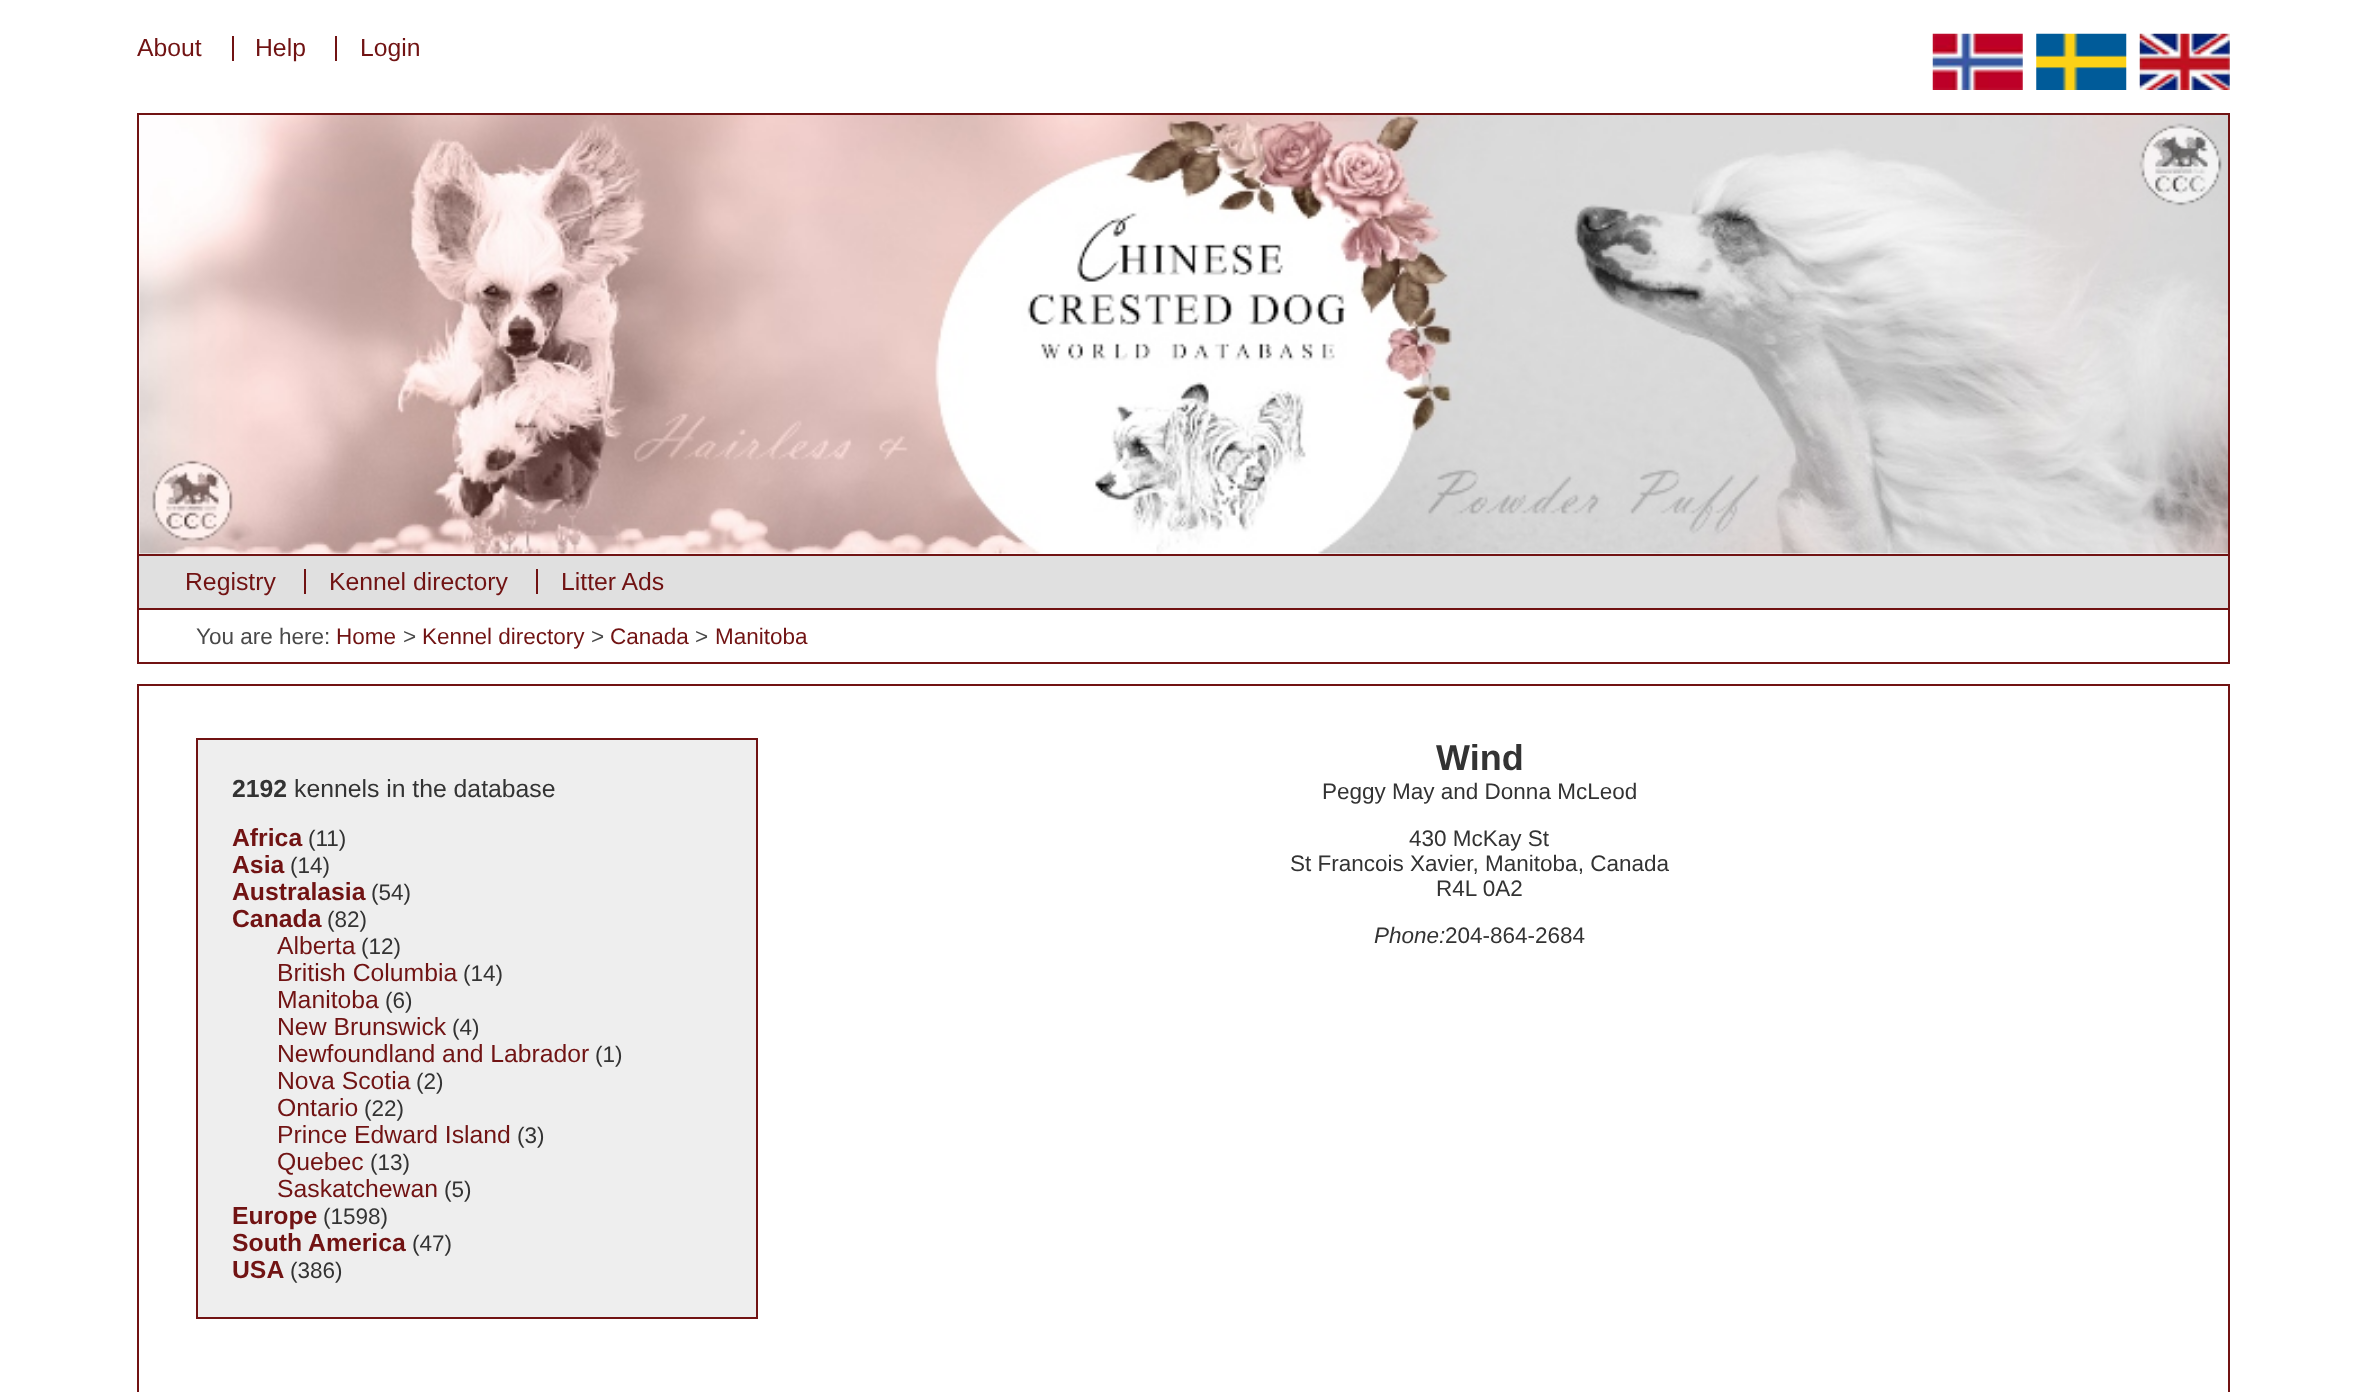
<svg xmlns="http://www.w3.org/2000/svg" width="2365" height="1392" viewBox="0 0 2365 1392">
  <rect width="100%" height="100%" fill="#ffffff"/>
  <text x="137" y="56" font-family="Liberation Sans" font-size="24.75" fill="#711313">About</text>
  <rect x="232" y="36" width="2" height="25" fill="#711313"/>
  <text x="255" y="56" font-family="Liberation Sans" font-size="24.75" fill="#711313">Help</text>
  <rect x="335" y="36" width="2" height="25" fill="#711313"/>
  <text x="360" y="56" font-family="Liberation Sans" font-size="24.75" fill="#711313">Login</text>
  <image x="1932" y="33" width="91" height="57" href="img1.png"/>
  <image x="2036" y="33" width="91" height="57" href="img2.png"/>
  <image x="2139" y="33" width="91" height="57" href="img3.png"/>
  <image x="139" y="115" width="2089" height="439" href="img4.png"/>
  <rect x="137" y="113" width="2093" height="2" fill="#711313"/>
  <rect x="2228" y="113" width="2" height="441" fill="#711313"/>
  <rect x="137" y="113" width="2" height="441" fill="#711313"/>
  <rect x="138" y="555" width="2091" height="54" fill="#e0e0e0" stroke="#711313" stroke-width="2"/>
  <text x="185" y="590" font-family="Liberation Sans" font-size="24.75" fill="#711313">Registry</text>
  <rect x="304" y="569" width="2" height="25" fill="#711313"/>
  <text x="329" y="590" font-family="Liberation Sans" font-size="24.75" fill="#711313">Kennel directory</text>
  <rect x="536" y="569" width="2" height="25" fill="#711313"/>
  <text x="561" y="590" font-family="Liberation Sans" font-size="24.75" fill="#711313">Litter Ads</text>
  <rect x="2228" y="610" width="2" height="54" fill="#711313"/>
  <rect x="137" y="662" width="2093" height="2" fill="#711313"/>
  <rect x="137" y="610" width="2" height="54" fill="#711313"/>
  <text x="196" y="644" font-family="Liberation Sans" font-size="22.5" fill="#494949">You are here:</text>
  <text x="336" y="644" font-family="Liberation Sans" font-size="22.5" fill="#711313">Home</text>
  <text x="403" y="644" font-family="Liberation Sans" font-size="22.5" fill="#494949">&gt;</text>
  <text x="422" y="644" font-family="Liberation Sans" font-size="22.5" fill="#711313">Kennel directory</text>
  <text x="591" y="644" font-family="Liberation Sans" font-size="22.5" fill="#494949">&gt;</text>
  <text x="610" y="644" font-family="Liberation Sans" font-size="22.5" fill="#711313">Canada</text>
  <text x="695" y="644" font-family="Liberation Sans" font-size="22.5" fill="#494949">&gt;</text>
  <text x="715" y="644" font-family="Liberation Sans" font-size="22.5" fill="#711313">Manitoba</text>
  <rect x="138" y="685" width="2091" height="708" fill="none" stroke="#711313" stroke-width="2"/>
  <rect x="197" y="739" width="560" height="579" fill="#eeeeee" stroke="#711313" stroke-width="2"/>
  <text x="232" y="797" font-family="Liberation Sans" font-size="24.75" font-weight="bold" fill="#333333">2192</text>
  <text x="294" y="797" font-family="Liberation Sans" font-size="24.75" fill="#333333">kennels in the database</text>
  <text x="232" y="846" font-family="Liberation Sans" font-size="24.75" font-weight="bold" fill="#711313">Africa</text>
  <text x="308" y="846" font-family="Liberation Sans" font-size="22.5" fill="#333333">(11)</text>
  <text x="232" y="873" font-family="Liberation Sans" font-size="24.75" font-weight="bold" fill="#711313">Asia</text>
  <text x="290" y="873" font-family="Liberation Sans" font-size="22.5" fill="#333333">(14)</text>
  <text x="232" y="900" font-family="Liberation Sans" font-size="24.75" font-weight="bold" fill="#711313">Australasia</text>
  <text x="371" y="900" font-family="Liberation Sans" font-size="22.5" fill="#333333">(54)</text>
  <text x="232" y="927" font-family="Liberation Sans" font-size="24.75" font-weight="bold" fill="#711313">Canada</text>
  <text x="327" y="927" font-family="Liberation Sans" font-size="22.5" fill="#333333">(82)</text>
  <text x="277" y="954" font-family="Liberation Sans" font-size="24.75" fill="#711313">Alberta</text>
  <text x="361" y="954" font-family="Liberation Sans" font-size="22.5" fill="#333333">(12)</text>
  <text x="277" y="981" font-family="Liberation Sans" font-size="24.75" fill="#711313">British Columbia</text>
  <text x="463" y="981" font-family="Liberation Sans" font-size="22.5" fill="#333333">(14)</text>
  <text x="277" y="1008" font-family="Liberation Sans" font-size="24.75" fill="#711313">Manitoba</text>
  <text x="385" y="1008" font-family="Liberation Sans" font-size="22.5" fill="#333333">(6)</text>
  <text x="277" y="1035" font-family="Liberation Sans" font-size="24.75" fill="#711313">New Brunswick</text>
  <text x="452" y="1035" font-family="Liberation Sans" font-size="22.5" fill="#333333">(4)</text>
  <text x="277" y="1062" font-family="Liberation Sans" font-size="24.75" fill="#711313">Newfoundland and Labrador</text>
  <text x="595" y="1062" font-family="Liberation Sans" font-size="22.5" fill="#333333">(1)</text>
  <text x="277" y="1089" font-family="Liberation Sans" font-size="24.75" fill="#711313">Nova Scotia</text>
  <text x="416" y="1089" font-family="Liberation Sans" font-size="22.5" fill="#333333">(2)</text>
  <text x="277" y="1116" font-family="Liberation Sans" font-size="24.75" fill="#711313">Ontario</text>
  <text x="364" y="1116" font-family="Liberation Sans" font-size="22.5" fill="#333333">(22)</text>
  <text x="277" y="1143" font-family="Liberation Sans" font-size="24.75" fill="#711313">Prince Edward Island</text>
  <text x="517" y="1143" font-family="Liberation Sans" font-size="22.5" fill="#333333">(3)</text>
  <text x="277" y="1170" font-family="Liberation Sans" font-size="24.75" fill="#711313">Quebec</text>
  <text x="370" y="1170" font-family="Liberation Sans" font-size="22.5" fill="#333333">(13)</text>
  <text x="277" y="1197" font-family="Liberation Sans" font-size="24.75" fill="#711313">Saskatchewan</text>
  <text x="444" y="1197" font-family="Liberation Sans" font-size="22.5" fill="#333333">(5)</text>
  <text x="232" y="1224" font-family="Liberation Sans" font-size="24.75" font-weight="bold" fill="#711313">Europe</text>
  <text x="323" y="1224" font-family="Liberation Sans" font-size="22.5" fill="#333333">(1598)</text>
  <text x="232" y="1251" font-family="Liberation Sans" font-size="24.75" font-weight="bold" fill="#711313">South America</text>
  <text x="412" y="1251" font-family="Liberation Sans" font-size="22.5" fill="#333333">(47)</text>
  <text x="232" y="1278" font-family="Liberation Sans" font-size="24.75" font-weight="bold" fill="#711313">USA</text>
  <text x="290" y="1278" font-family="Liberation Sans" font-size="22.5" fill="#333333">(386)</text>
  <text x="1436" y="770" font-family="Liberation Sans" font-size="36" font-weight="bold" fill="#333333">Wind</text>
  <text x="1322" y="799" font-family="Liberation Sans" font-size="22.5" fill="#333333">Peggy May and Donna McLeod</text>
  <text x="1409" y="846" font-family="Liberation Sans" font-size="22.5" fill="#333333">430 McKay St</text>
  <text x="1290" y="871" font-family="Liberation Sans" font-size="22.5" fill="#333333">St Francois Xavier, Manitoba, Canada</text>
  <text x="1436" y="896" font-family="Liberation Sans" font-size="22.5" fill="#333333">R4L 0A2</text>
  <text x="1374" y="943" font-family="Liberation Sans" font-size="22.5" font-style="italic" fill="#333333">Phone:</text>
  <text x="1445" y="943" font-family="Liberation Sans" font-size="22.5" fill="#333333">204-864-2684</text>
</svg>
